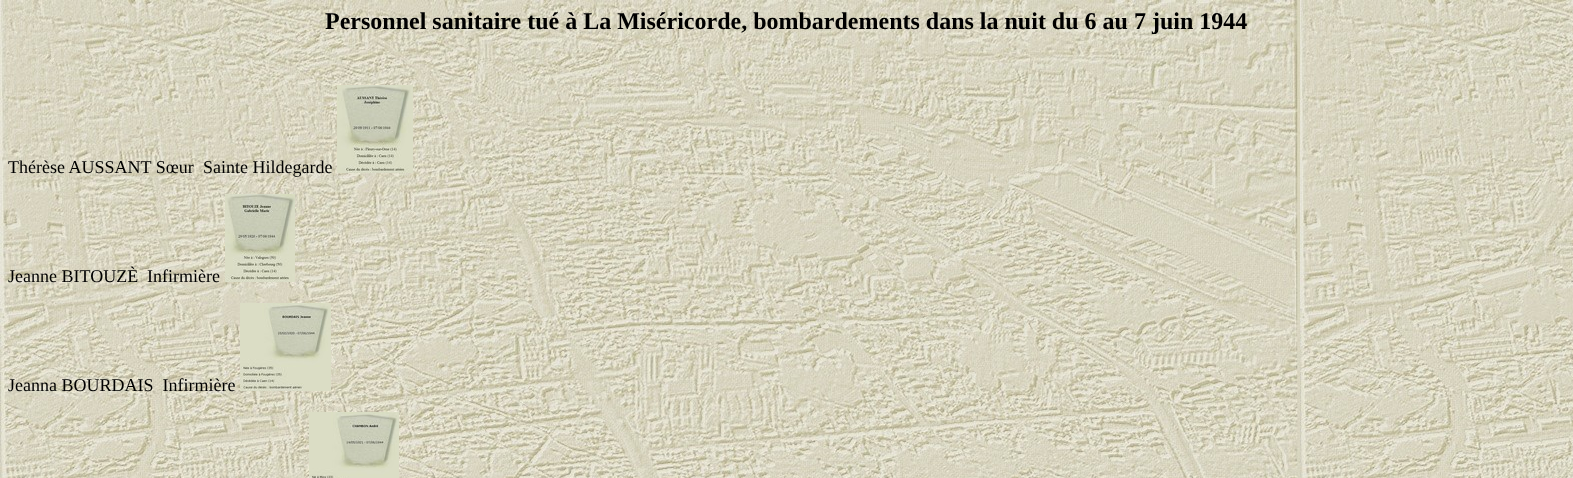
<svg xmlns="http://www.w3.org/2000/svg" width="1573" height="478" viewBox="0 0 1573 478">
  <rect width="100%" height="100%" fill="#ffffff"/>
  <image x="0" y="0" width="1573" height="478" href="img1.png"/>
  <text x="325" y="29" font-family="Liberation Serif" font-size="24" font-weight="bold" fill="#000000">Personnel sanitaire tué à La Miséricorde, bombardements dans la nuit du 6 au 7 juin 1944</text>
  <text x="8" y="173" font-family="Liberation Serif" font-size="18" fill="#000000">Thérèse AUSSANT Sœur</text>
  <text x="203" y="173" font-family="Liberation Serif" font-size="18" fill="#000000">Sainte Hildegarde</text>
  <image x="337" y="85" width="76" height="88" href="img2.png"/>
  <text x="8" y="282" font-family="Liberation Serif" font-size="18" fill="#000000">Jeanne BITOUZÈ</text>
  <text x="147" y="282" font-family="Liberation Serif" font-size="18" fill="#000000">Infirmière</text>
  <image x="225" y="194" width="70" height="88" href="img3.png"/>
  <text x="8" y="391" font-family="Liberation Serif" font-size="18" fill="#000000" xml:space="preserve">Jeanna BOURDAIS  Infirmière</text>
  <image x="240" y="303" width="91" height="88" href="img4.png"/>
  <image x="309" y="412" width="90" height="66" href="img5.png"/>
</svg>
